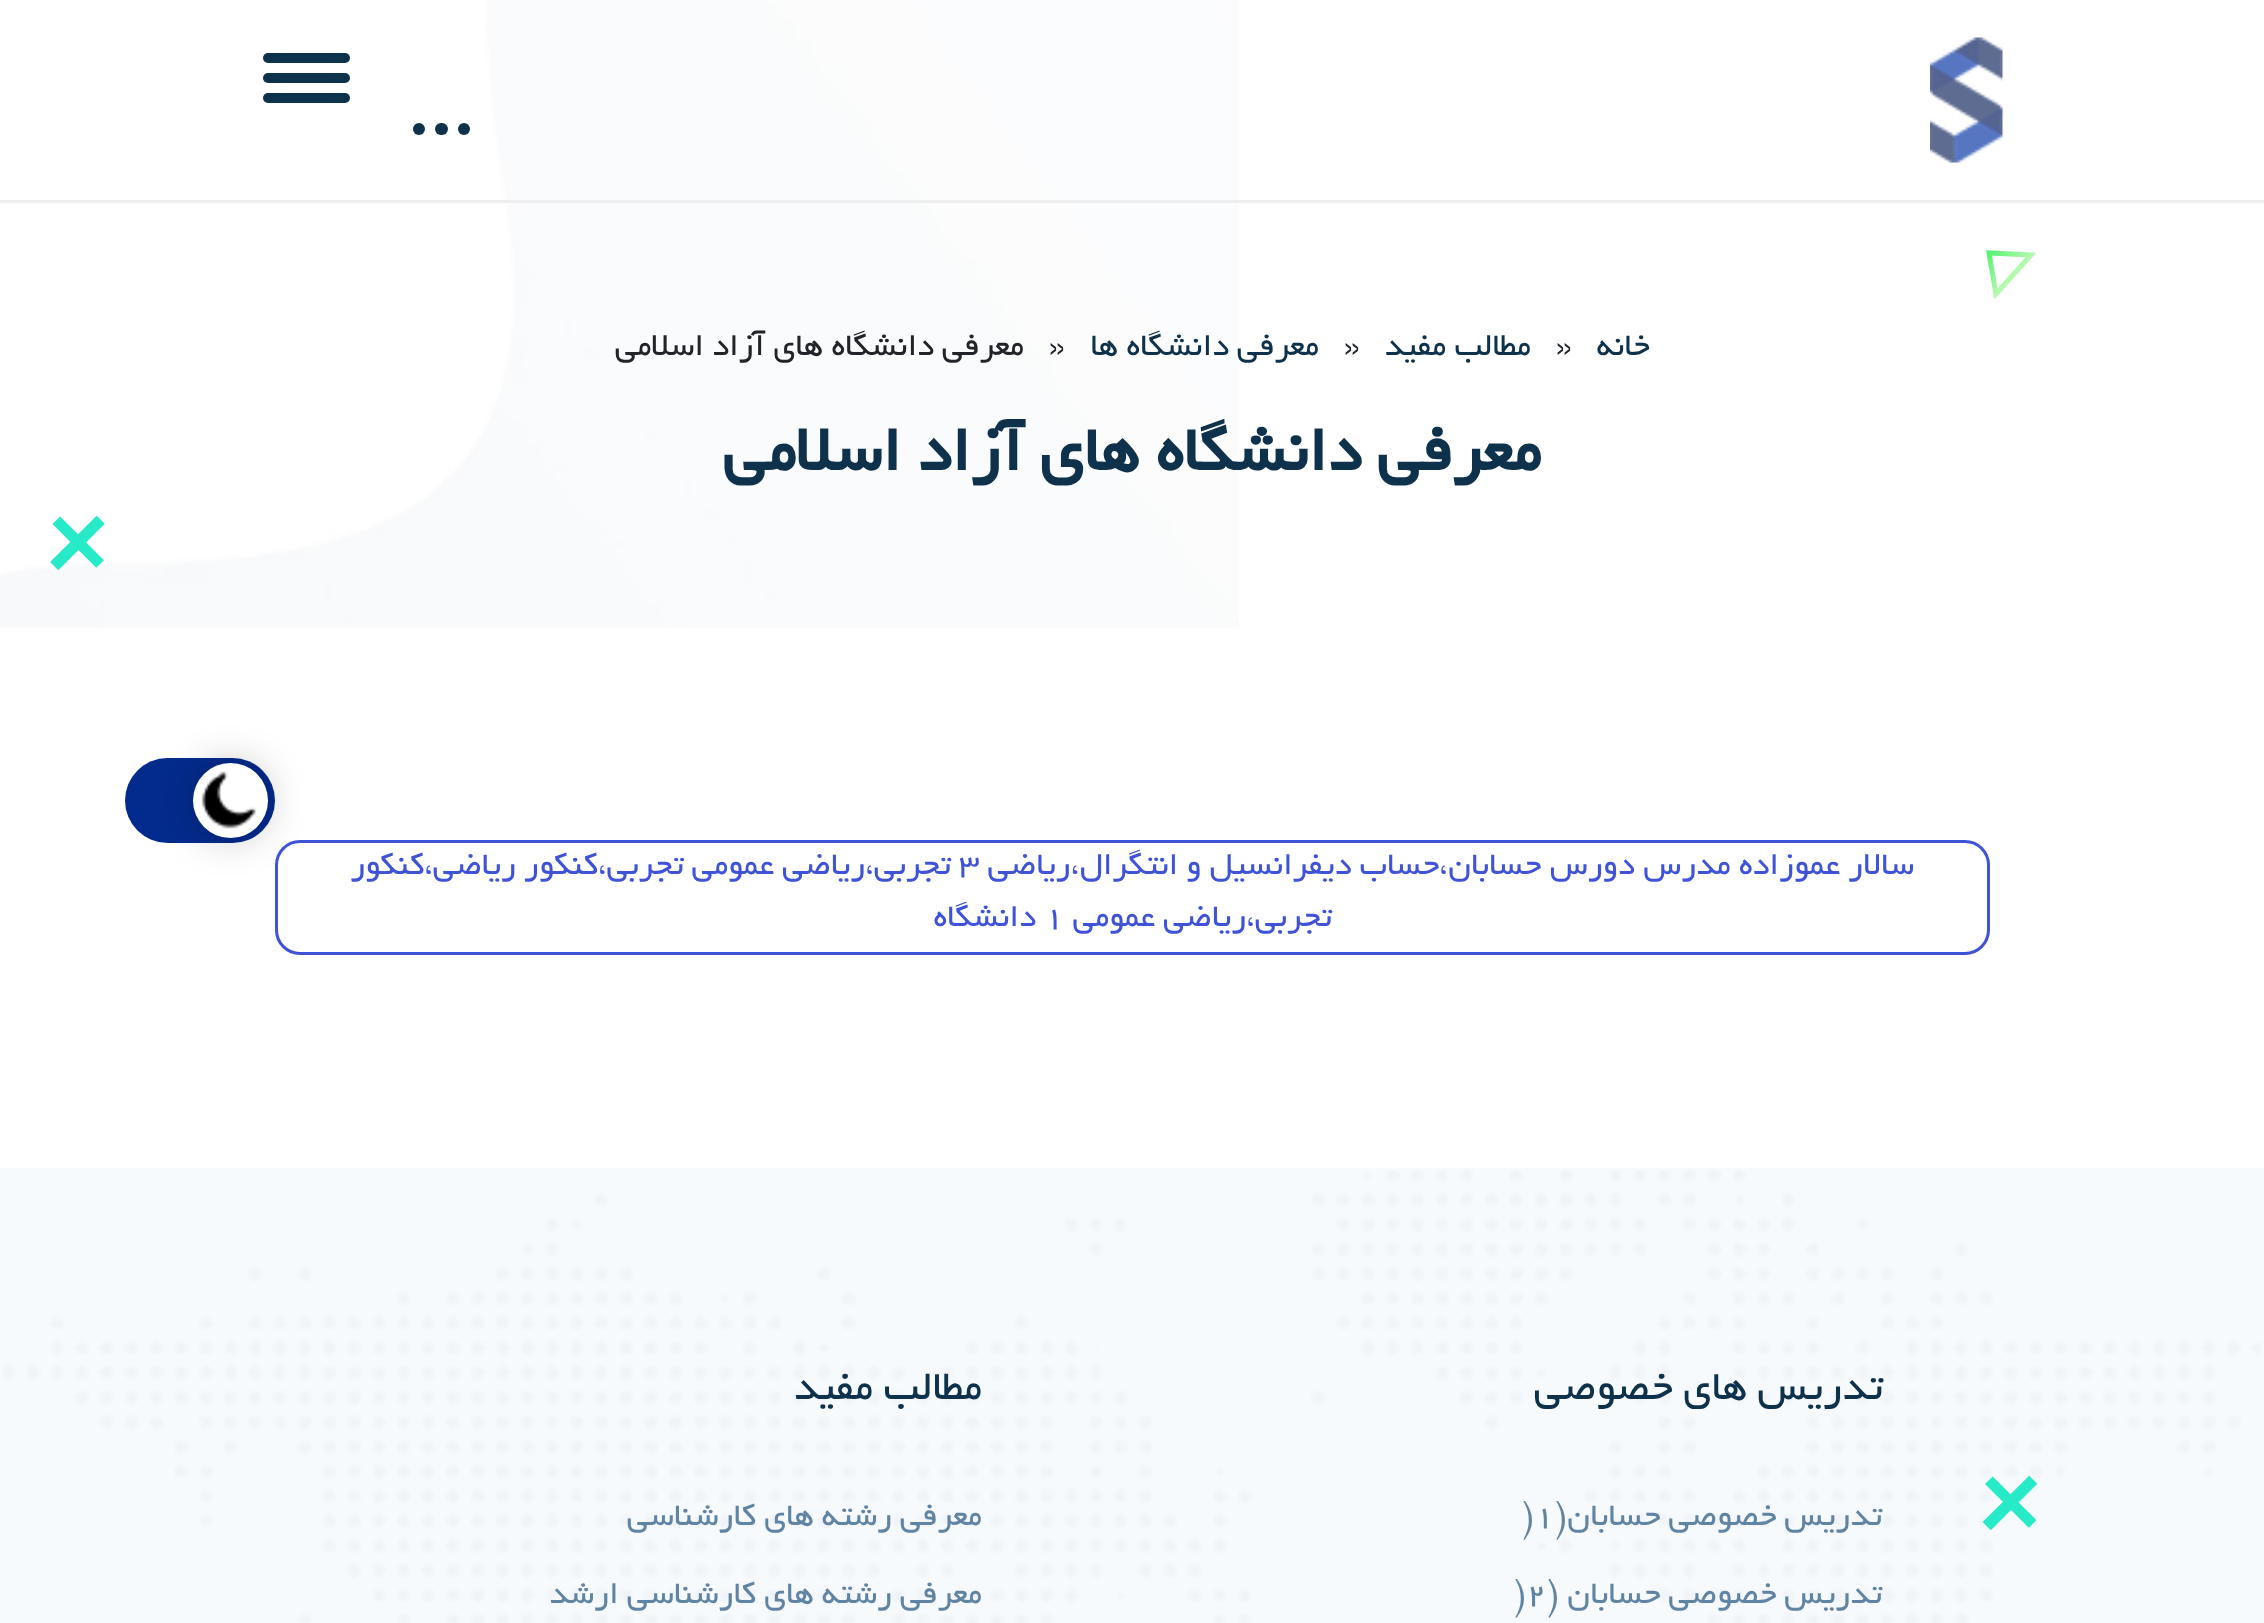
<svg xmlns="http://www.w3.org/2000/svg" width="2264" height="1623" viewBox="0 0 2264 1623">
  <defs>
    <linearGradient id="g1" gradientUnits="userSpaceOnUse" x1="1989" y1="253" x2="2025" y2="285"><stop offset="0" stop-color="#57f173"/><stop offset="1" stop-color="#ddffc6"/></linearGradient>
    <filter id="blur1" x="-50%" y="-200%" width="200%" height="500%"><feGaussianBlur stdDeviation="19"/></filter>
  </defs>
  <rect width="100%" height="100%" fill="#ffffff"/>
  <image x="0" y="0" width="1239" height="628" href="img2.png"/>
  <rect x="0" y="200" width="2264" height="3" fill="#eeeeee"/>
  <image x="1930" y="37" width="73" height="126" href="img1.png"/>
  <rect x="263" y="53" width="87" height="10" rx="5" fill="#0e314c"/>
  <rect x="263" y="73" width="87" height="10" rx="5" fill="#0e314c"/>
  <rect x="263" y="93" width="87" height="10" rx="5" fill="#0e314c"/>
  <circle cx="464" cy="129" r="6" fill="#0e314c"/>
  <rect x="435" y="123" width="13" height="12" rx="6" fill="#0e314c"/>
  <circle cx="419" cy="129" r="6" fill="#0e314c"/>
  <path d="M2031 255L1989 253L1996 294Z" fill="none" stroke="url(#g1)" stroke-width="5"/>
  <text x="1650" y="355" font-family="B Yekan" font-size="35" direction="rtl" fill="#0e314c">خانه</text>
  <text x="1556" y="355" font-family="B Yekan" font-size="35" fill="#212529">»</text>
  <text x="1531" y="355" font-family="B Yekan" font-size="35" direction="rtl" fill="#0e314c">مطالب مفید</text>
  <text x="1344" y="355" font-family="B Yekan" font-size="35" fill="#212529">»</text>
  <text x="1319" y="355" font-family="B Yekan" font-size="35" direction="rtl" fill="#0e314c">معرفی دانشگاه ها</text>
  <text x="1049" y="355" font-family="B Yekan" font-size="35" fill="#212529">»</text>
  <text x="1024" y="355" font-family="B Yekan" font-size="35" direction="rtl" fill="#212529">معرفی دانشگاه های آزاد اسلامی</text>
  <text x="1541" y="470" font-family="B Yekan" font-size="70" font-weight="bold" direction="rtl" fill="#0e314c">معرفی دانشگاه های آزاد اسلامی</text>
  <image x="50" y="515" width="55" height="55" href="img3.png"/>
  <rect x="276.5" y="841.5" width="1712" height="112" rx="23.5" fill="none" stroke="#3f53d9" stroke-width="3"/>
  <text x="1914" y="874" font-family="B Yekan" font-size="35" direction="rtl" fill="#3f53d9">سالار عموزاده مدرس دورس حسابان،حساب دیفرانسیل و انتگرال،ریاضی</text>
  <text x="959" y="874" font-family="B Yekan" font-size="35" fill="#3f53d9">3</text>
  <text x="951" y="874" font-family="B Yekan" font-size="35" direction="rtl" fill="#3f53d9">تجربی،ریاضی عمومی تجربی،کنکور ریاضی،کنکور</text>
  <text x="1332" y="926" font-family="B Yekan" font-size="35" direction="rtl" fill="#3f53d9">تجربی،ریاضی عمومی</text>
  <text x="1044" y="926" font-family="B Yekan" font-size="35" fill="#3f53d9">1</text>
  <text x="1036" y="926" font-family="B Yekan" font-size="35" direction="rtl" fill="#3f53d9">دانشگاه</text>
  <rect x="125" y="758" width="150" height="85" rx="42.5" fill="#032b8d"/>
  <rect x="193" y="763" width="75" height="75" rx="37.5" fill="#202020" fill-opacity="0.24" filter="url(#blur1)"/>
  <circle cx="230.5" cy="800.5" r="37.5" fill="#ffffff"/>
  <image x="201" y="771" width="55" height="58" href="img4.png"/>
  <rect x="0" y="1168" width="2264" height="455" fill="#f7fafd"/>
  <image x="3" y="1170" width="2258" height="453" href="img5.png"/>
  <image x="1983" y="1475" width="55" height="55" href="img6.png"/>
  <text x="1883" y="1399" font-family="B Yekan" font-size="45" direction="rtl" fill="#0e314c">تدریس های خصوصی</text>
  <text x="1882" y="1525" font-family="B Yekan" font-size="35" direction="rtl" fill="#6084a4">تدریس خصوصی حسابان(</text>
  <text x="1522" y="1525" font-family="B Yekan" font-size="35" fill="#6084a4">)1</text>
  <text x="1882" y="1603" font-family="B Yekan" font-size="35" direction="rtl" fill="#6084a4">تدریس خصوصی حسابان (</text>
  <text x="1514" y="1603" font-family="B Yekan" font-size="35" fill="#6084a4">)2</text>
  <text x="982" y="1399" font-family="B Yekan" font-size="45" direction="rtl" fill="#0e314c">مطالب مفید</text>
  <text x="982" y="1525" font-family="B Yekan" font-size="35" direction="rtl" fill="#6084a4">معرفی رشته های کارشناسی</text>
  <text x="982" y="1603" font-family="B Yekan" font-size="35" direction="rtl" fill="#6084a4">معرفی رشته های کارشناسی ارشد</text>
</svg>
